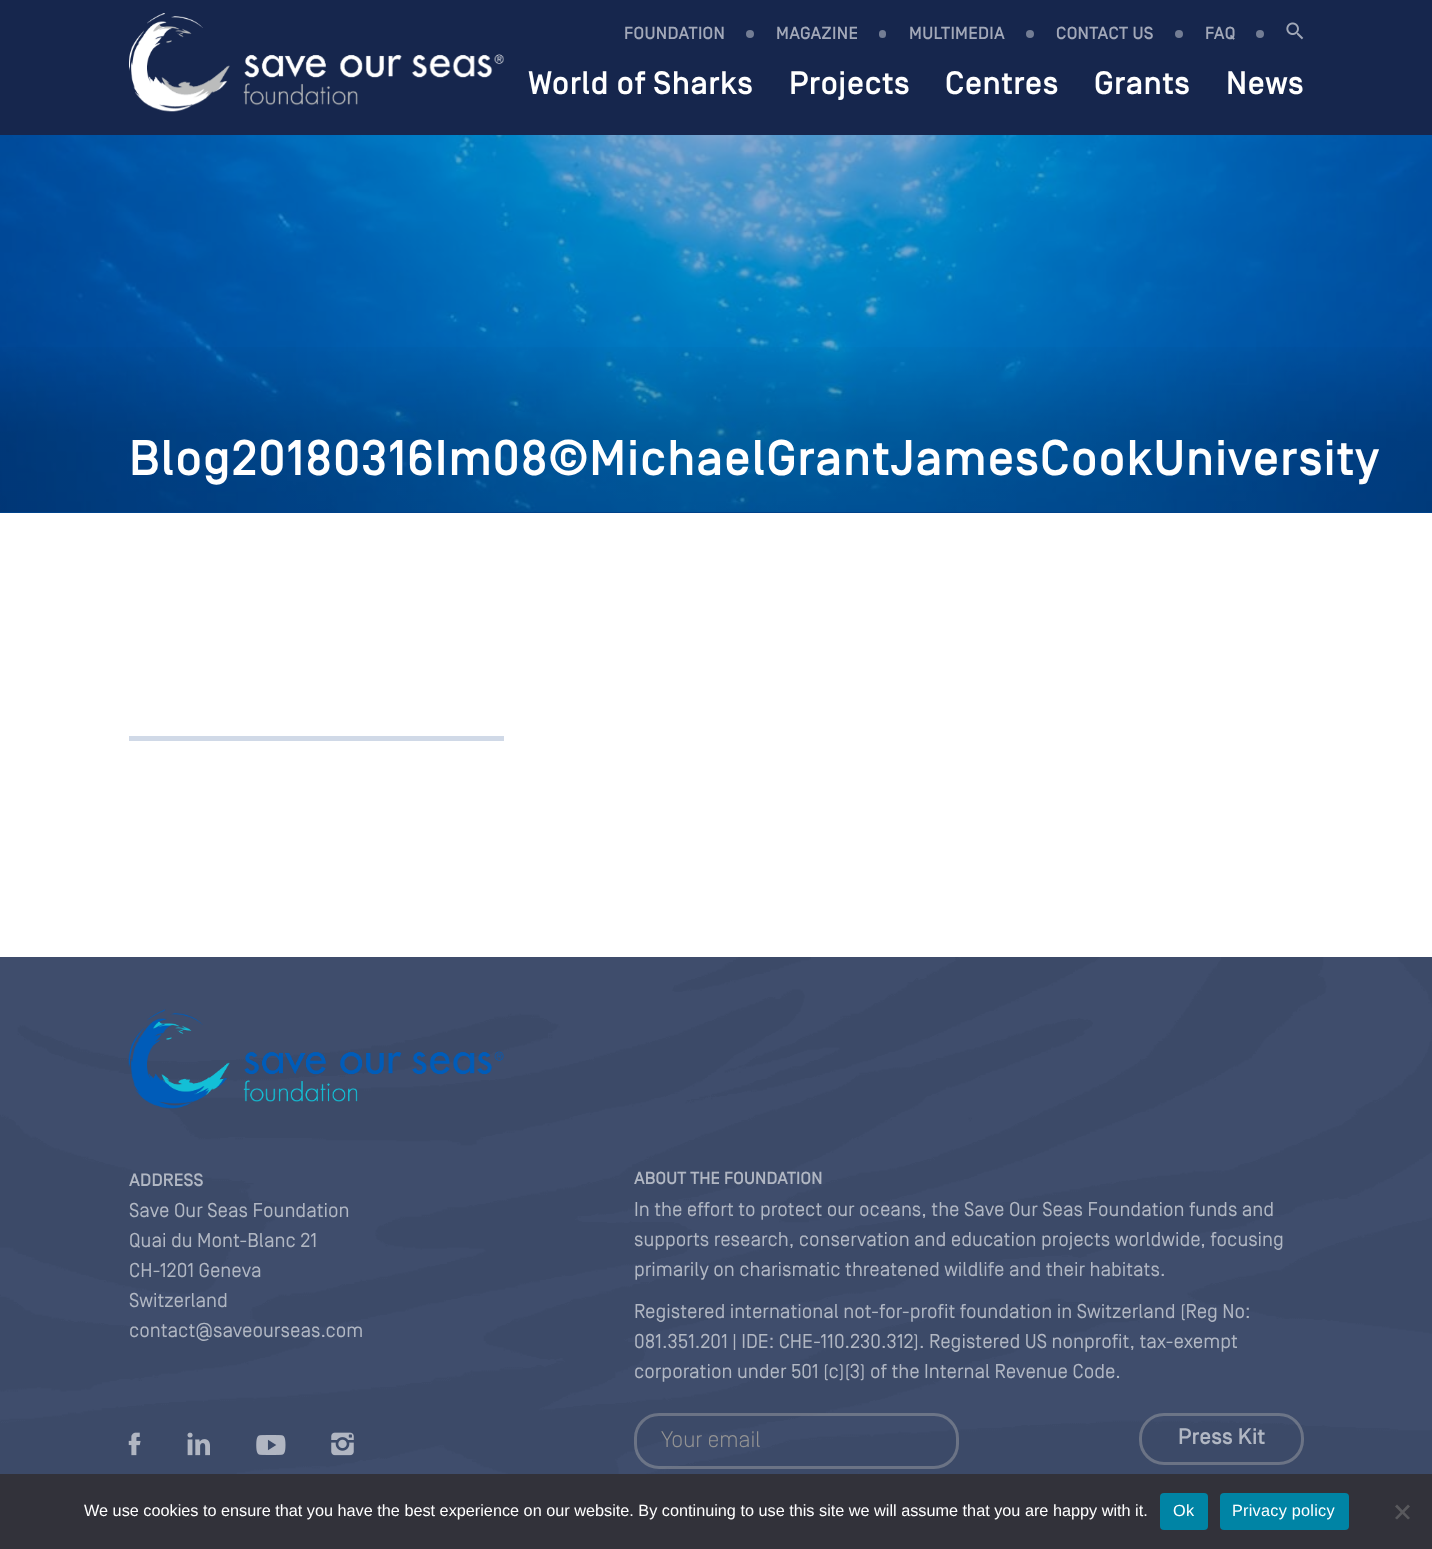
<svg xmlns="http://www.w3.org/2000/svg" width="1432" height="1549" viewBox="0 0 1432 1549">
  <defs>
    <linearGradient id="g1" gradientUnits="userSpaceOnUse" x1="716" y1="-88" x2="716" y2="513"><stop offset="0" stop-color="#0f1833" stop-opacity="0.4"/><stop offset="0.12" stop-color="#000000" stop-opacity="0.1"/><stop offset="0.3" stop-color="#000000" stop-opacity="0"/><stop offset="0.7" stop-color="#000000" stop-opacity="0"/><stop offset="0.87" stop-color="#000000" stop-opacity="0.15"/></linearGradient>
  </defs>
  <rect width="100%" height="100%" fill="#ffffff"/>
  <rect x="0" y="0" width="1432" height="135" fill="#16264d"/>
  <image x="129" y="13" width="375" height="99" href="img1.png"/>
  <text x="624" y="39" font-family="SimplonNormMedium" font-size="17.5" font-weight="500" letter-spacing="0.25" fill="#a2a8b8">FOUNDATION</text>
  <circle cx="750" cy="34" r="4" fill="#737d94"/>
  <text x="776" y="39" font-family="SimplonNormMedium" font-size="17.5" font-weight="500" letter-spacing="0.25" fill="#a2a8b8">MAGAZINE</text>
  <rect x="879" y="30" width="7" height="8" rx="3.5" fill="#737d94"/>
  <text x="909" y="39" font-family="SimplonNormMedium" font-size="17.5" font-weight="500" letter-spacing="0.25" fill="#a2a8b8">MULTIMEDIA</text>
  <circle cx="1030" cy="34" r="4" fill="#737d94"/>
  <text x="1056" y="39" font-family="SimplonNormMedium" font-size="17.5" font-weight="500" letter-spacing="0.25" fill="#a2a8b8">CONTACT US</text>
  <circle cx="1179" cy="34" r="4" fill="#737d94"/>
  <text x="1205" y="39" font-family="SimplonNormMedium" font-size="17.5" font-weight="500" letter-spacing="0.25" fill="#a2a8b8">FAQ</text>
  <circle cx="1260" cy="34" r="4" fill="#737d94"/>
  <image x="1286" y="22" width="18" height="18" href="img2.png"/>
  <text x="528" y="94" font-family="SimplonNormMedium" font-size="32.5" font-weight="500" letter-spacing="0.4" fill="#ffffff">World of Sharks</text>
  <text x="789" y="94" font-family="SimplonNormMedium" font-size="32.5" font-weight="500" letter-spacing="0.4" fill="#ffffff">Projects</text>
  <text x="945" y="94" font-family="SimplonNormMedium" font-size="32.5" font-weight="500" letter-spacing="0.4" fill="#ffffff">Centres</text>
  <text x="1094" y="94" font-family="SimplonNormMedium" font-size="32.5" font-weight="500" letter-spacing="0.4" fill="#ffffff">Grants</text>
  <text x="1226" y="94" font-family="SimplonNormMedium" font-size="32.5" font-weight="500" letter-spacing="0.4" fill="#ffffff">News</text>
  <rect x="0" y="135" width="1432" height="378" fill="#004da1"/>
  <image x="0" y="135" width="1432" height="377" href="img3.png"/>
  <rect x="0" y="347" width="1432" height="166" fill="url(#g1)"/>
  <text x="129" y="475" font-family="SimplonNormMedium" font-size="50" font-weight="500" letter-spacing="0.85" fill="#ffffff">Blog20180316Im08©MichaelGrantJamesCookUniversity</text>
  <rect x="129" y="736" width="375" height="5" fill="#d0d9e7"/>
  <rect x="0" y="1474" width="1432" height="75" fill="#32323a"/>
  <text x="84" y="1516" font-family="Liberation Sans" font-size="16.25" fill="#ffffff">We use cookies to ensure that you have the best experience on our website. By continuing to use this site we will assume that you are happy with it.</text>
  <rect x="1160" y="1493" width="48" height="37" rx="4" fill="#0084a5"/>
  <text x="1173" y="1516" font-family="Liberation Sans" font-size="16.25" letter-spacing="0.25" fill="#ffffff">Ok</text>
  <rect x="1220" y="1493" width="129" height="37" rx="4" fill="#0084a5"/>
  <text x="1232" y="1516" font-family="Liberation Sans" font-size="16.25" letter-spacing="0.25" fill="#ffffff">Privacy policy</text>
  <path d="M1408 1504.5L1410 1506.5L1397 1519.5L1395 1518Z" fill="#59595d"/>
  <path d="M1395 1506.5L1397 1504.5L1410 1518L1408 1519.5Z" fill="#59595d"/>
  <image x="0" y="957" width="1432" height="517" href="img4.png"/>
  <image x="128" y="1009" width="376" height="100" href="img5.png"/>
  <text x="129" y="1186" font-family="SimplonNormMedium" font-size="18" font-weight="500" fill="#b1b7c3">ADDRESS</text>
  <text x="129" y="1217" font-family="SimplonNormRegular" font-size="20" fill="#b1b7c3">Save Our Seas Foundation</text>
  <text x="129" y="1247" font-family="SimplonNormRegular" font-size="20" fill="#b1b7c3">Quai du Mont-Blanc 21</text>
  <text x="129" y="1277" font-family="SimplonNormRegular" font-size="20" fill="#b1b7c3">CH-1201 Geneva</text>
  <text x="129" y="1307" font-family="SimplonNormRegular" font-size="20" fill="#b1b7c3">Switzerland</text>
  <text x="129" y="1337" font-family="SimplonNormRegular" font-size="20" fill="#b1b7c3">contact@saveourseas.com</text>
  <text x="634" y="1184" font-family="SimplonNormMedium" font-size="17.5" font-weight="500" fill="#b1b7c3">ABOUT THE FOUNDATION</text>
  <text x="634" y="1216" font-family="SimplonNormRegular" font-size="20" fill="#b1b7c3">In the effort to protect our oceans, the Save Our Seas Foundation funds and</text>
  <text x="634" y="1246" font-family="SimplonNormRegular" font-size="20" fill="#b1b7c3">supports research, conservation and education projects worldwide, focusing</text>
  <text x="634" y="1276" font-family="SimplonNormRegular" font-size="20" fill="#b1b7c3">primarily on charismatic threatened wildlife and their habitats.</text>
  <text x="634" y="1318" font-family="SimplonNormRegular" font-size="20" fill="#b1b7c3">Registered international not-for-profit foundation in Switzerland (Reg No:</text>
  <text x="634" y="1348" font-family="SimplonNormRegular" font-size="20" fill="#b1b7c3">081.351.201 | IDE: CHE-110.230.312). Registered US nonprofit, tax-exempt</text>
  <text x="634" y="1378" font-family="SimplonNormRegular" font-size="20" fill="#b1b7c3">corporation under 501 (c)(3) of the Internal Revenue Code.</text>
  <image x="128" y="1432" width="13" height="24" href="img6.png"/>
  <image x="187" y="1432" width="23" height="24" href="img7.png"/>
  <image x="256" y="1435" width="30" height="20" href="img8.png"/>
  <image x="331" y="1432" width="23" height="24" href="img9.png"/>
  <rect x="635.5" y="1414.5" width="322" height="53" rx="23.5" fill="none" stroke="#b1b1b1" stroke-opacity="0.4" stroke-width="3"/>
  <text x="661" y="1447" font-family="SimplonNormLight" font-size="22.5" font-weight="300" fill="#939393">Your email</text>
  <rect x="1140.5" y="1414.5" width="162" height="49" rx="23.5" fill="none" stroke="#b1b1b1" stroke-opacity="0.4" stroke-width="3"/>
  <text x="1178" y="1444" font-family="SimplonNormMedium" font-size="22.5" font-weight="500" fill="#b1b7c3">Press Kit</text>
</svg>
